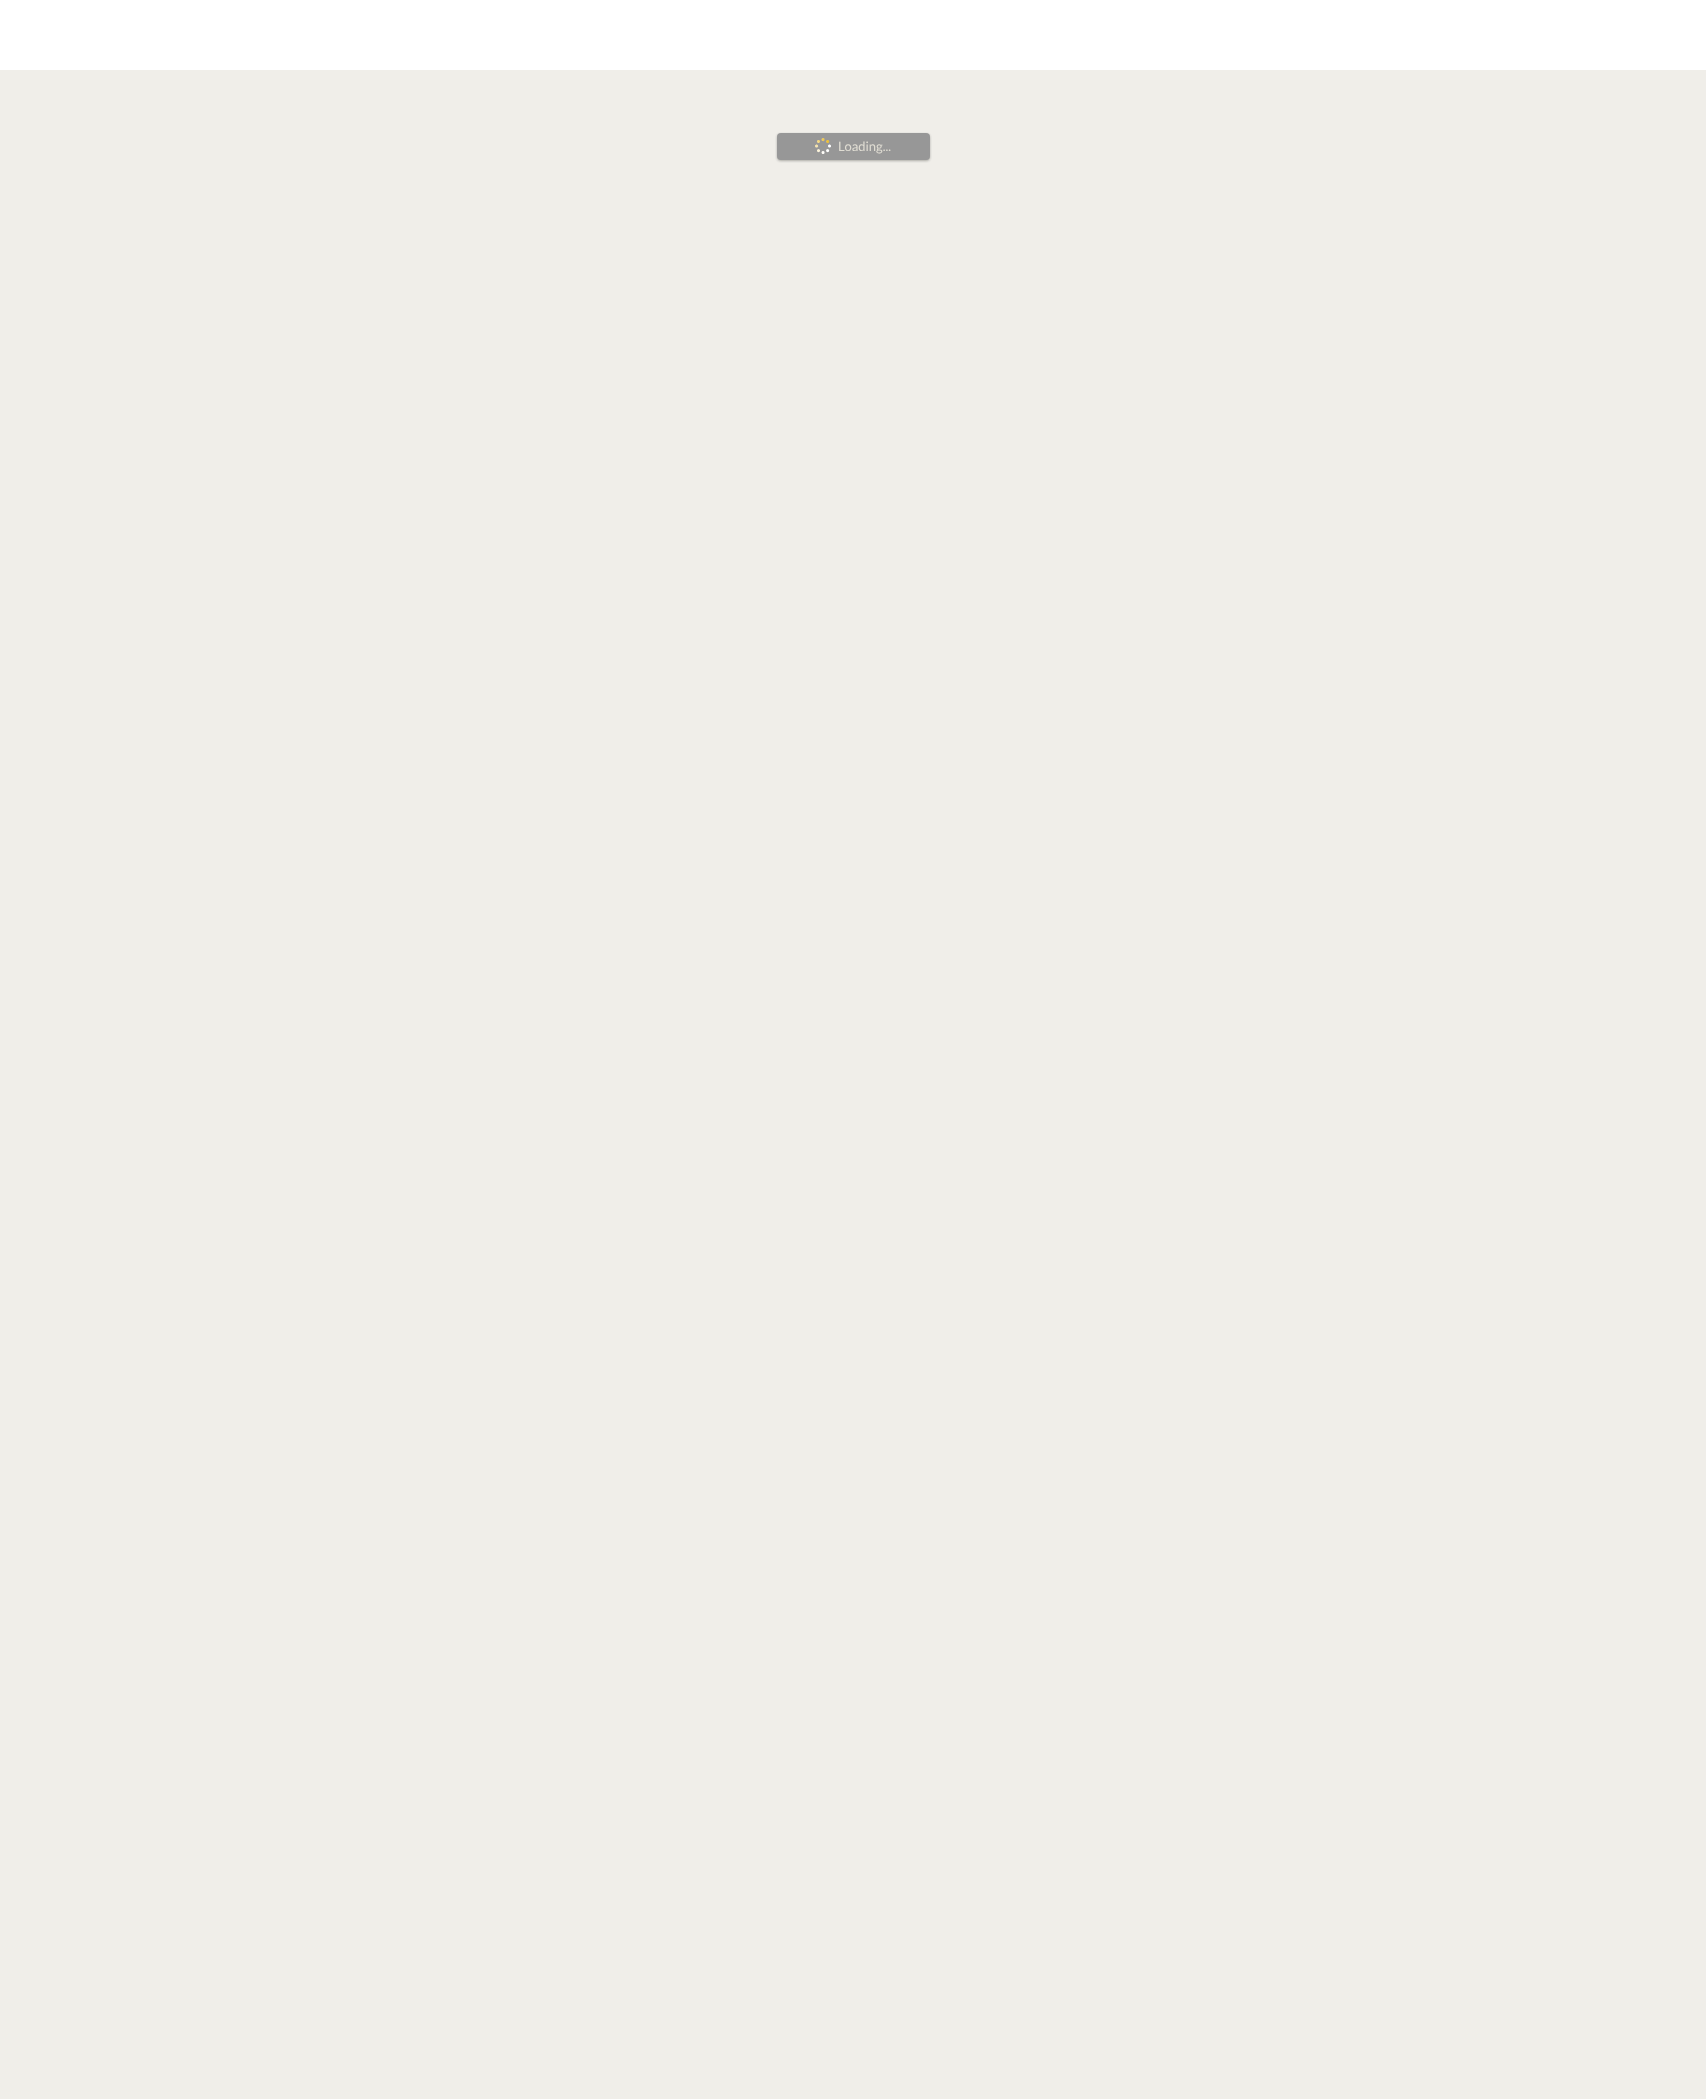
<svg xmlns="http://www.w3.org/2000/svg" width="1706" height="2099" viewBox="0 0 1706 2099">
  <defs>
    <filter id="blur1" x="-50%" y="-200%" width="200%" height="500%"><feGaussianBlur stdDeviation="1"/></filter>
  </defs>
  <rect width="100%" height="100%" fill="#f0eee9"/>
  <rect x="0" y="0" width="1706" height="70" fill="#ffffff"/>
  <rect x="777" y="134" width="153" height="27" rx="4" fill="#474641" fill-opacity="0.4" filter="url(#blur1)"/>
  <rect x="777" y="133" width="153" height="27" rx="4" fill="#979797"/>
  <image x="815" y="138" width="16" height="16" href="img1.png"/>
  <text x="838" y="151" font-family="Lato" font-size="13" fill="#e0ddd3">Loading...</text>
</svg>
